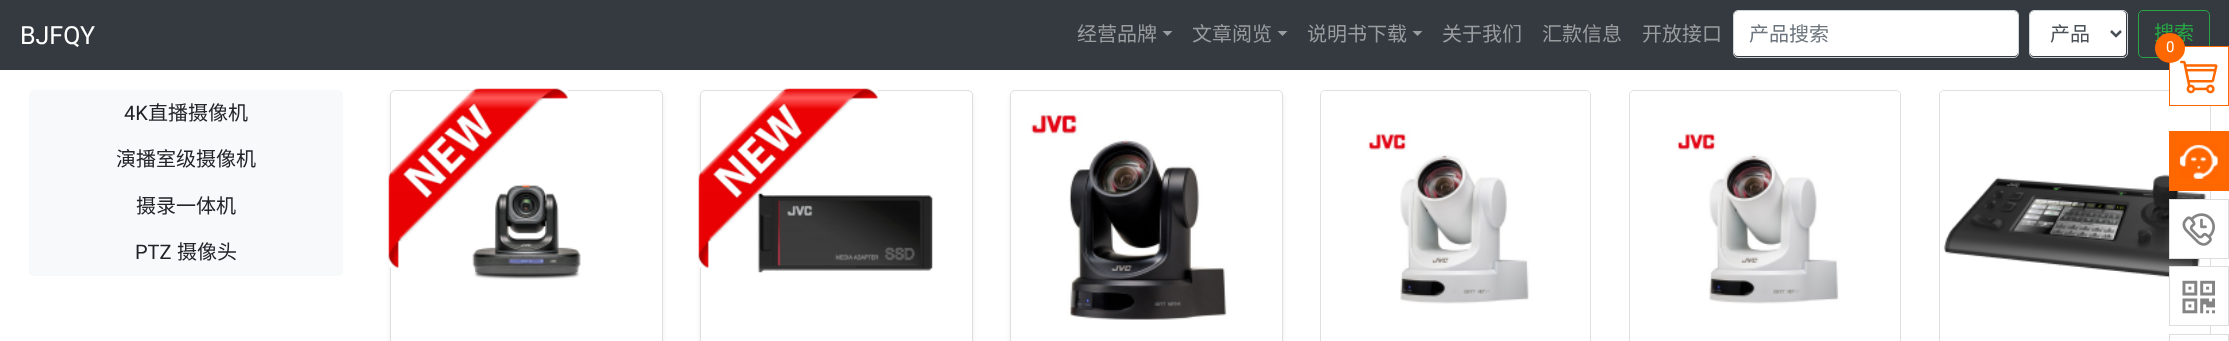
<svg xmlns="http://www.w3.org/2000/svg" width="2229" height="341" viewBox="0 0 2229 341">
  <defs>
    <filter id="blur1" x="-50%" y="-200%" width="200%" height="500%"><feGaussianBlur stdDeviation="2.5"/></filter>
  </defs>
  <rect width="100%" height="100%" fill="#ffffff"/>
  <rect x="0" y="0" width="2229" height="70" fill="#343a40"/>
  <text x="20" y="44" font-family="Roboto" font-size="25" fill="#ffffff">BJFQY</text>
  <text x="1077" y="41" font-family="Noto Sans CJK SC" font-size="20" fill="#9a9da0">经营品牌</text>
  <path d="M1162.5 31H1172.5L1167.5 36Z" fill="#9a9da0"/>
  <text x="1192" y="41" font-family="Noto Sans CJK SC" font-size="20" fill="#9a9da0">文章阅览</text>
  <path d="M1277.5 31H1287.5L1282.5 36Z" fill="#9a9da0"/>
  <text x="1307" y="41" font-family="Noto Sans CJK SC" font-size="20" fill="#9a9da0">说明书下载</text>
  <path d="M1412.5 31H1422.5L1417.5 36Z" fill="#9a9da0"/>
  <text x="1442" y="41" font-family="Noto Sans CJK SC" font-size="20" fill="#9a9da0">关于我们</text>
  <text x="1542" y="41" font-family="Noto Sans CJK SC" font-size="20" fill="#9a9da0">汇款信息</text>
  <text x="1642" y="41" font-family="Noto Sans CJK SC" font-size="20" fill="#9a9da0">开放接口</text>
  <rect x="1734" y="11" width="284" height="45" rx="4" fill="#ffffff"/>
  <rect x="1733.5" y="10.5" width="285" height="47" rx="4.5" fill="none" stroke="#ced4da"/>
  <text x="1749" y="41" font-family="Noto Sans CJK SC" font-size="20" fill="#6c757d">产品搜索</text>
  <rect x="2030" y="11" width="96" height="45" rx="4" fill="#ffffff"/>
  <rect x="2029.5" y="10.5" width="98" height="47" rx="4.5" fill="none" stroke="#ced4da"/>
  <path d="M2111 31L2116 36L2121 31" fill="none" stroke="#495057" stroke-width="2.5"/>
  <text x="2050" y="41" font-family="Noto Sans CJK SC" font-size="20" fill="#495057">产品</text>
  <rect x="2138.5" y="10.5" width="71" height="47" rx="4.5" fill="none" stroke="#28a745"/>
  <text x="2154" y="40" font-family="Noto Sans CJK SC" font-size="20" fill="#28a745">搜索</text>
  <rect x="1939.5" y="90.5" width="271" height="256" rx="4.5" fill="none" stroke="#dfdfdf"/>
  <image x="1940" y="91" width="270" height="190" href="img12.png"/>
  <rect x="2169.5" y="46.5" width="59" height="59" fill="#ffffff" stroke="#ff6800"/>
  <image x="2180" y="60" width="38" height="34" href="img1.png"/>
  <circle cx="2170" cy="48" r="15" fill="#ff6800"/>
  <text x="2166" y="52" font-family="Roboto" font-size="15" fill="#ffffff">0</text>
  <rect x="2169" y="131" width="60" height="60" fill="#ff6800"/>
  <image x="2179" y="144" width="39" height="35" href="img2.png"/>
  <rect x="2170" y="200" width="41" height="58" fill="#ffffff"/>
  <rect x="2169.5" y="199.5" width="59" height="59" fill="none" stroke="#dddddd"/>
  <image x="2182" y="213" width="33" height="33" href="img3.png"/>
  <rect x="2170" y="267" width="41" height="58" fill="#ffffff"/>
  <rect x="2169.5" y="266.5" width="59" height="59" fill="none" stroke="#dddddd"/>
  <image x="2182" y="280" width="33" height="34" href="img4.png"/>
  <rect x="2210" y="335" width="1" height="6" fill="#ffffff"/>
  <rect x="2169.5" y="334.5" width="59" height="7" fill="none" stroke="#dddddd"/>
  <path d="M34 90H338C341 90 343 92 343 95V138H29V95C29 92 31 90 34 90Z" fill="#f8f9fa"/>
  <text x="124" y="120" font-family="Roboto" font-size="20" fill="#212529">4K</text>
  <text x="148" y="120" font-family="Noto Sans CJK SC" font-size="20" fill="#212529">直播摄像机</text>
  <rect x="29" y="138" width="314" height="91" fill="#f8f9fa"/>
  <text x="116" y="166" font-family="Noto Sans CJK SC" font-size="20" fill="#212529">演播室级摄像机</text>
  <text x="136" y="213" font-family="Noto Sans CJK SC" font-size="20" fill="#212529">摄录一体机</text>
  <path d="M29 229H343V271C343 274 341 276 338 276H34C31 276 29 274 29 271Z" fill="#f8f9fa"/>
  <text x="135" y="259" font-family="Roboto" font-size="20" fill="#212529">PTZ</text>
  <text x="177" y="259" font-family="Noto Sans CJK SC" font-size="20" fill="#212529">摄像头</text>
  <rect x="390" y="93" width="273" height="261" rx="5" fill="#000000" fill-opacity="0.07" filter="url(#blur1)"/>
  <rect x="390.5" y="90.5" width="272" height="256" rx="4.5" fill="#ffffff" stroke="#dfdfdf"/>
  <image x="391" y="93" width="190" height="187" href="img6.png"/>
  <image x="388" y="88" width="180" height="180" href="img5.png"/>
  <rect x="700" y="93" width="273" height="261" rx="5" fill="#000000" fill-opacity="0.07" filter="url(#blur1)"/>
  <rect x="700.5" y="90.5" width="272" height="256" rx="4.5" fill="#ffffff" stroke="#dfdfdf"/>
  <image x="701" y="93" width="232" height="180" href="img8.png"/>
  <image x="698" y="88" width="180" height="180" href="img7.png"/>
  <rect x="1010" y="93" width="273" height="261" rx="5" fill="#000000" fill-opacity="0.07" filter="url(#blur1)"/>
  <rect x="1010.5" y="90.5" width="272" height="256" rx="4.5" fill="#ffffff" stroke="#dfdfdf"/>
  <image x="1011" y="93" width="216" height="227" href="img9.png"/>
  <rect x="1320.5" y="90.5" width="270" height="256" rx="4.5" fill="none" stroke="#dfdfdf"/>
  <image x="1321" y="91" width="269" height="213" href="img10.png"/>
  <rect x="1629.5" y="90.5" width="271" height="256" rx="4.5" fill="none" stroke="#dfdfdf"/>
  <image x="1630" y="91" width="270" height="213" href="img11.png"/>
</svg>
